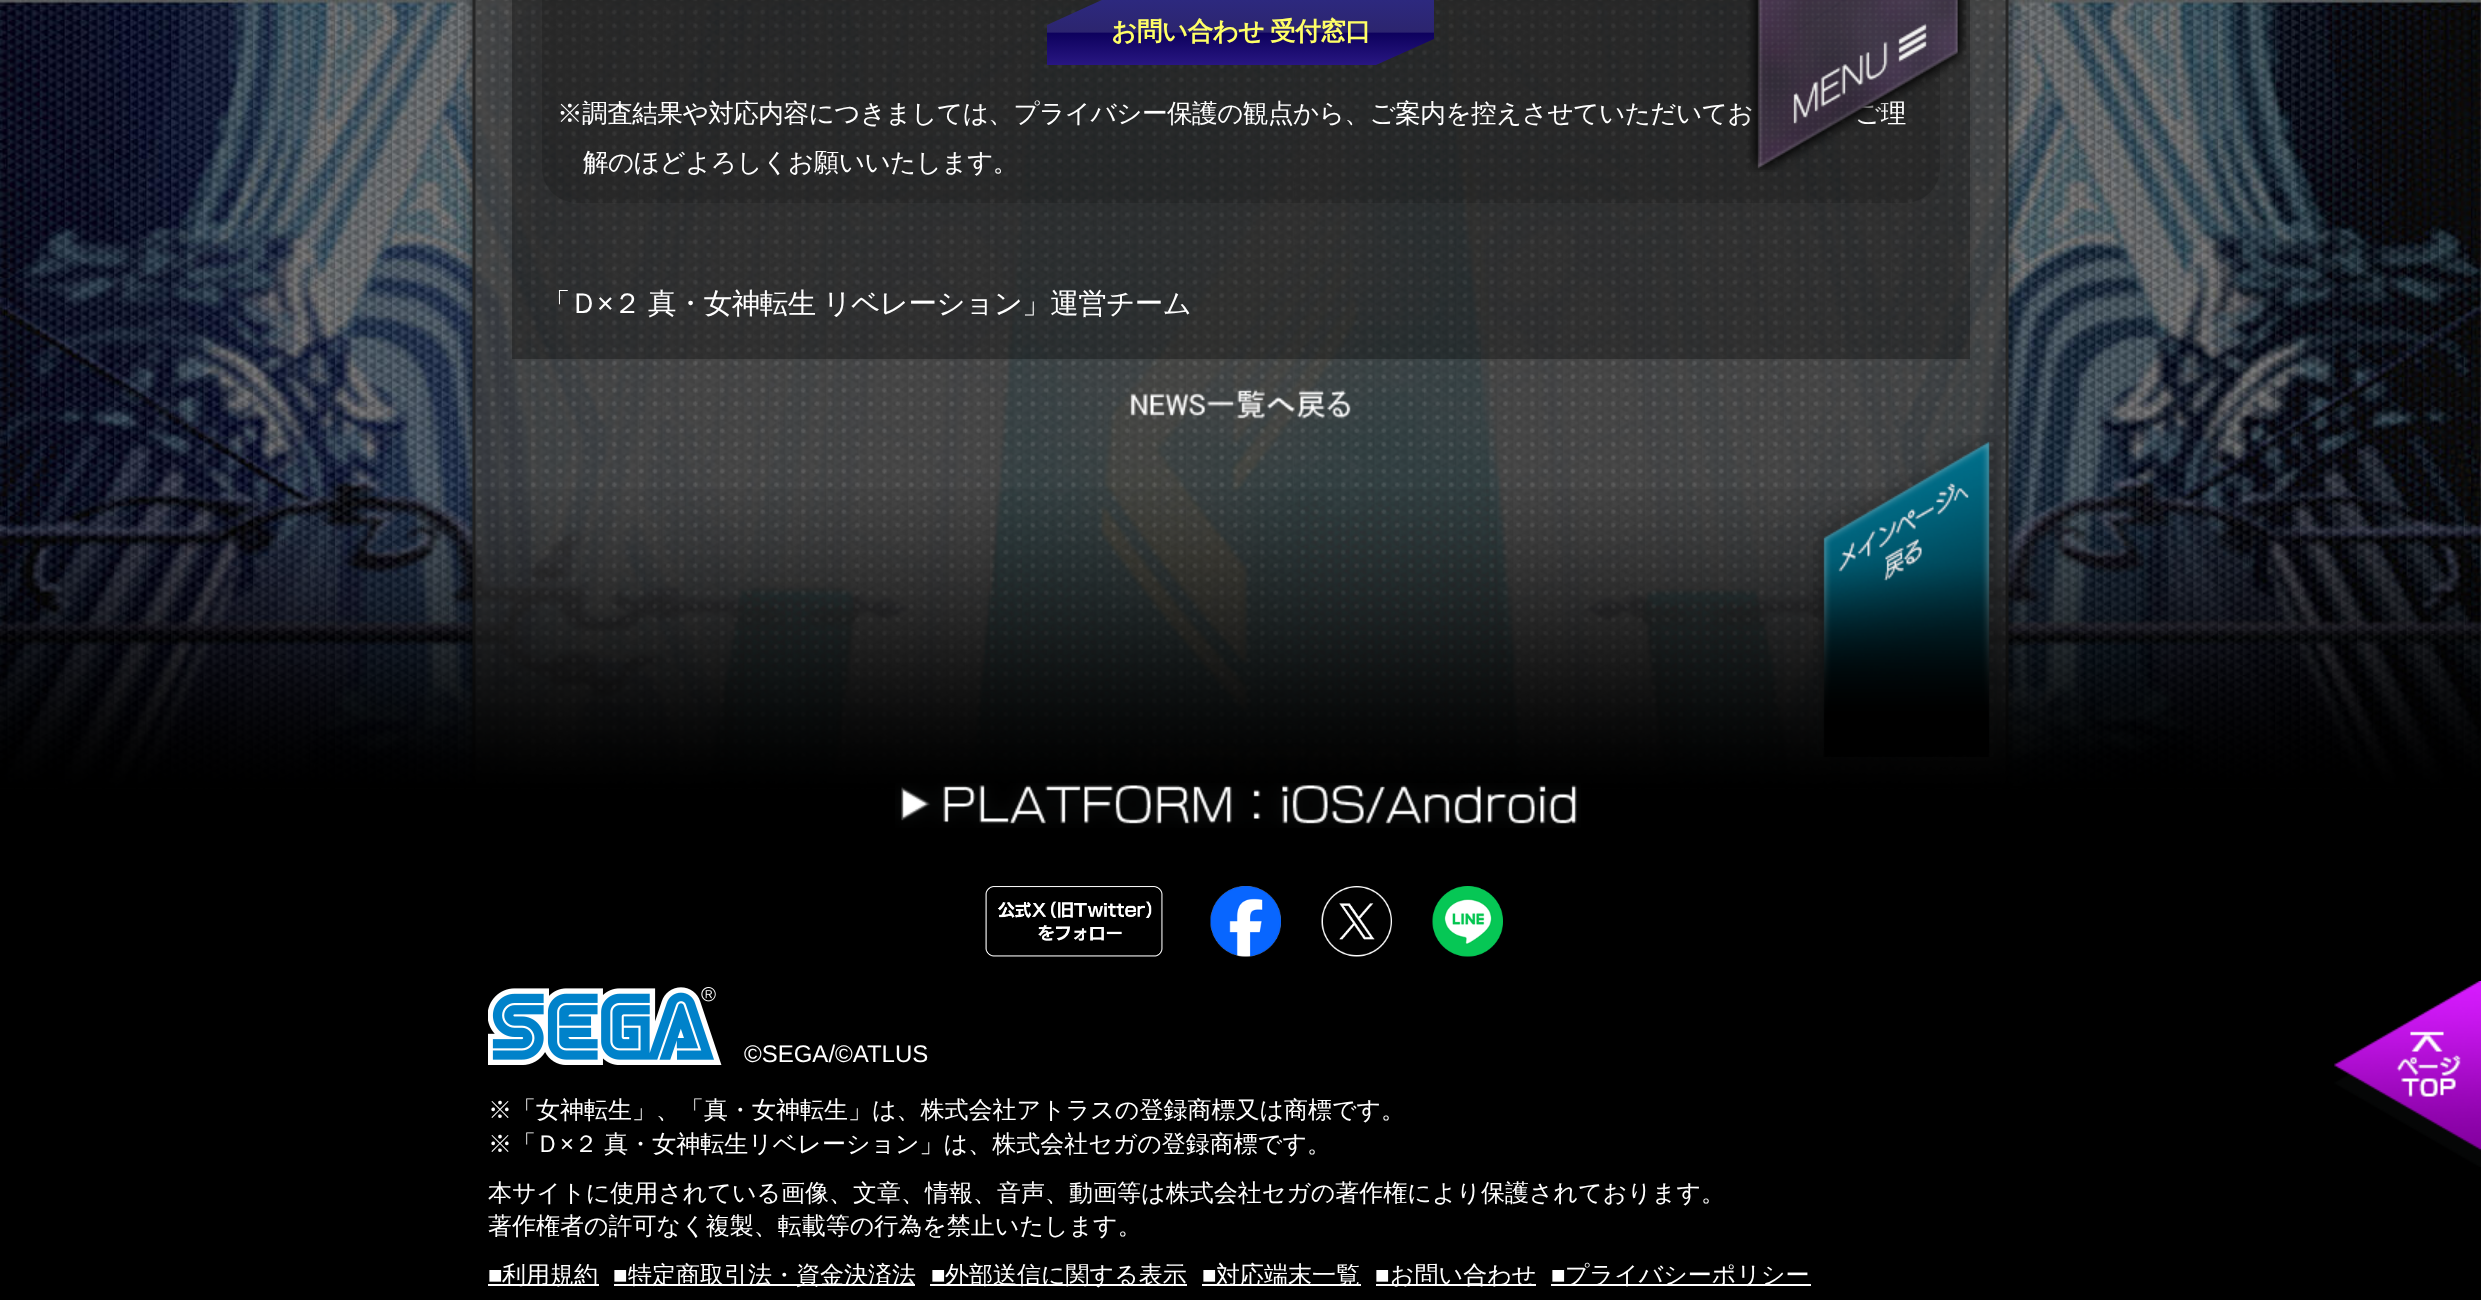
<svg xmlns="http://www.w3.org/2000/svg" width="2481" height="1300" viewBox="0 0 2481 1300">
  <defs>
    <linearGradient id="g1" gradientUnits="userSpaceOnUse" x1="1241" y1="-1.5" x2="1241" y2="66"><stop offset="0" stop-color="#2d297f"/><stop offset="0.5" stop-color="#2c256f"/><stop offset="0.51" stop-color="#0d015d"/><stop offset="1" stop-color="#291783"/></linearGradient>
  </defs>
  <rect width="100%" height="100%" fill="#ffffff"/>
  <image x="0" y="0" width="2481" height="788" href="img1.png"/>
  <image x="463" y="0" width="1555" height="788" href="img2.png"/>
  <rect x="512" y="0" width="1458" height="359" fill="#000000" fill-opacity="0.3"/>
  <rect x="542" y="-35" width="1398" height="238" rx="35" fill="#000000" fill-opacity="0.15"/>
  <text x="557" y="122" font-family="WenQuanYi Zen Hei" font-size="25.65" font-weight="500" letter-spacing="-0.55" fill="#ffffff">※調査結果や対応内容につきましては、プライバシー保護の観点から、ご案内を控えさせていただいてお</text>
  <text x="1855" y="122" font-family="WenQuanYi Zen Hei" font-size="25.65" font-weight="500" letter-spacing="-0.55" fill="#ffffff">ご理</text>
  <image x="1746" y="0" width="221" height="172" href="img3.png"/>
  <image x="1748" y="0" width="218" height="170" href="img4.png"/>
  <path d="M1047 25L1104-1H1434V39L1376 65H1047Z" fill="url(#g1)"/>
  <text x="1111" y="40" word-spacing="-1" font-family="WenQuanYi Zen Hei" font-size="25.65" font-weight="bold" letter-spacing="-0.55" fill="#ffff66">お問い合わせ 受付窓口</text>
  <text x="583" y="171" font-family="WenQuanYi Zen Hei" font-size="25.65" font-weight="500" letter-spacing="-0.55" fill="#ffffff">解のほどよろしくお願いいたします。</text>
  <text x="542" y="313" font-family="WenQuanYi Zen Hei" font-size="28.5" font-weight="500" letter-spacing="-0.55" fill="#ffffff">「Ｄ</text>
  <text x="597" y="313" font-family="Liberation Sans" font-size="28.5" letter-spacing="-0.55" fill="#ffffff">×</text>
  <text x="613" y="313" word-spacing="-1" font-family="WenQuanYi Zen Hei" font-size="28.5" font-weight="500" letter-spacing="-0.55" fill="#ffffff">２ 真・女神転生 リベレーション」運営チーム</text>
  <image x="1130" y="389" width="221" height="30" href="img5.png"/>
  <image x="0" y="489" width="2481" height="811" href="img7.png"/>
  <image x="1813" y="435" width="188" height="322" href="img6.png"/>
  <image x="895" y="783" width="686" height="45" href="img8.png"/>
  <image x="985" y="886" width="178" height="71" href="img9.png"/>
  <image x="1210" y="886" width="71" height="71" href="img10.png"/>
  <image x="1321" y="886" width="71" height="71" href="img11.png"/>
  <image x="1432" y="886" width="71" height="71" href="img12.png"/>
  <image x="488" y="987" width="234" height="78" href="img13.png"/>
  <text x="744" y="1062" font-family="Liberation Sans" font-size="24" fill="#ffffff">©SEGA/©ATLUS</text>
  <text x="488" y="1118" font-family="WenQuanYi Zen Hei" font-size="24" font-weight="500" fill="#ffffff">※「女神転生」、「真・女神転生」は、株式会社アトラスの登録商標又は商標です。</text>
  <text x="488" y="1152" font-family="WenQuanYi Zen Hei" font-size="24" font-weight="500" fill="#ffffff">※「Ｄ</text>
  <text x="560" y="1152" font-family="Liberation Sans" font-size="24" fill="#ffffff">×</text>
  <text x="574" y="1152" word-spacing="-1" font-family="WenQuanYi Zen Hei" font-size="24" font-weight="500" fill="#ffffff">２ 真・女神転生リベレーション」は、株式会社セガの登録商標です。</text>
  <text x="488" y="1201" font-family="WenQuanYi Zen Hei" font-size="24" font-weight="500" fill="#ffffff">本サイトに使用されている画像、文章、情報、音声、動画等は株式会社セガの著作権により保護されております。</text>
  <text x="488" y="1234" font-family="WenQuanYi Zen Hei" font-size="24" font-weight="500" fill="#ffffff">著作権者の許可なく複製、転載等の行為を禁止いたします。</text>
  <text x="488" y="1283" font-family="Liberation Sans" font-size="24" fill="#ffffff">■</text>
  <rect x="488" y="1284" width="111" height="2" fill="#ffffff"/>
  <text x="502" y="1283" font-family="WenQuanYi Zen Hei" font-size="24" font-weight="500" fill="#ffffff">利用規約</text>
  <text x="613" y="1283" font-family="Liberation Sans" font-size="24" fill="#ffffff">■</text>
  <rect x="614" y="1284" width="301" height="2" fill="#ffffff"/>
  <text x="628" y="1283" font-family="WenQuanYi Zen Hei" font-size="24" font-weight="500" fill="#ffffff">特定商取引法・資金決済法</text>
  <text x="931" y="1283" font-family="Liberation Sans" font-size="24" fill="#ffffff">■</text>
  <rect x="930" y="1284" width="257" height="2" fill="#ffffff"/>
  <text x="945" y="1283" font-family="WenQuanYi Zen Hei" font-size="24" font-weight="500" fill="#ffffff">外部送信に関する表示</text>
  <text x="1202" y="1283" font-family="Liberation Sans" font-size="24" fill="#ffffff">■</text>
  <rect x="1202" y="1284" width="159" height="2" fill="#ffffff"/>
  <text x="1216" y="1283" font-family="WenQuanYi Zen Hei" font-size="24" font-weight="500" fill="#ffffff">対応端末一覧</text>
  <text x="1375" y="1283" font-family="Liberation Sans" font-size="24" fill="#ffffff">■</text>
  <rect x="1376" y="1284" width="160" height="2" fill="#ffffff"/>
  <text x="1390" y="1283" font-family="WenQuanYi Zen Hei" font-size="24" font-weight="500" fill="#ffffff">お問い合わせ</text>
  <text x="1551" y="1283" font-family="Liberation Sans" font-size="24" fill="#ffffff">■</text>
  <rect x="1551" y="1284" width="260" height="2" fill="#ffffff"/>
  <text x="1565" y="1283" font-family="WenQuanYi Zen Hei" font-size="24" font-weight="500" fill="#ffffff">プライバシーポリシー</text>
  <image x="2334" y="981" width="147" height="186" href="img14.png"/>
</svg>
